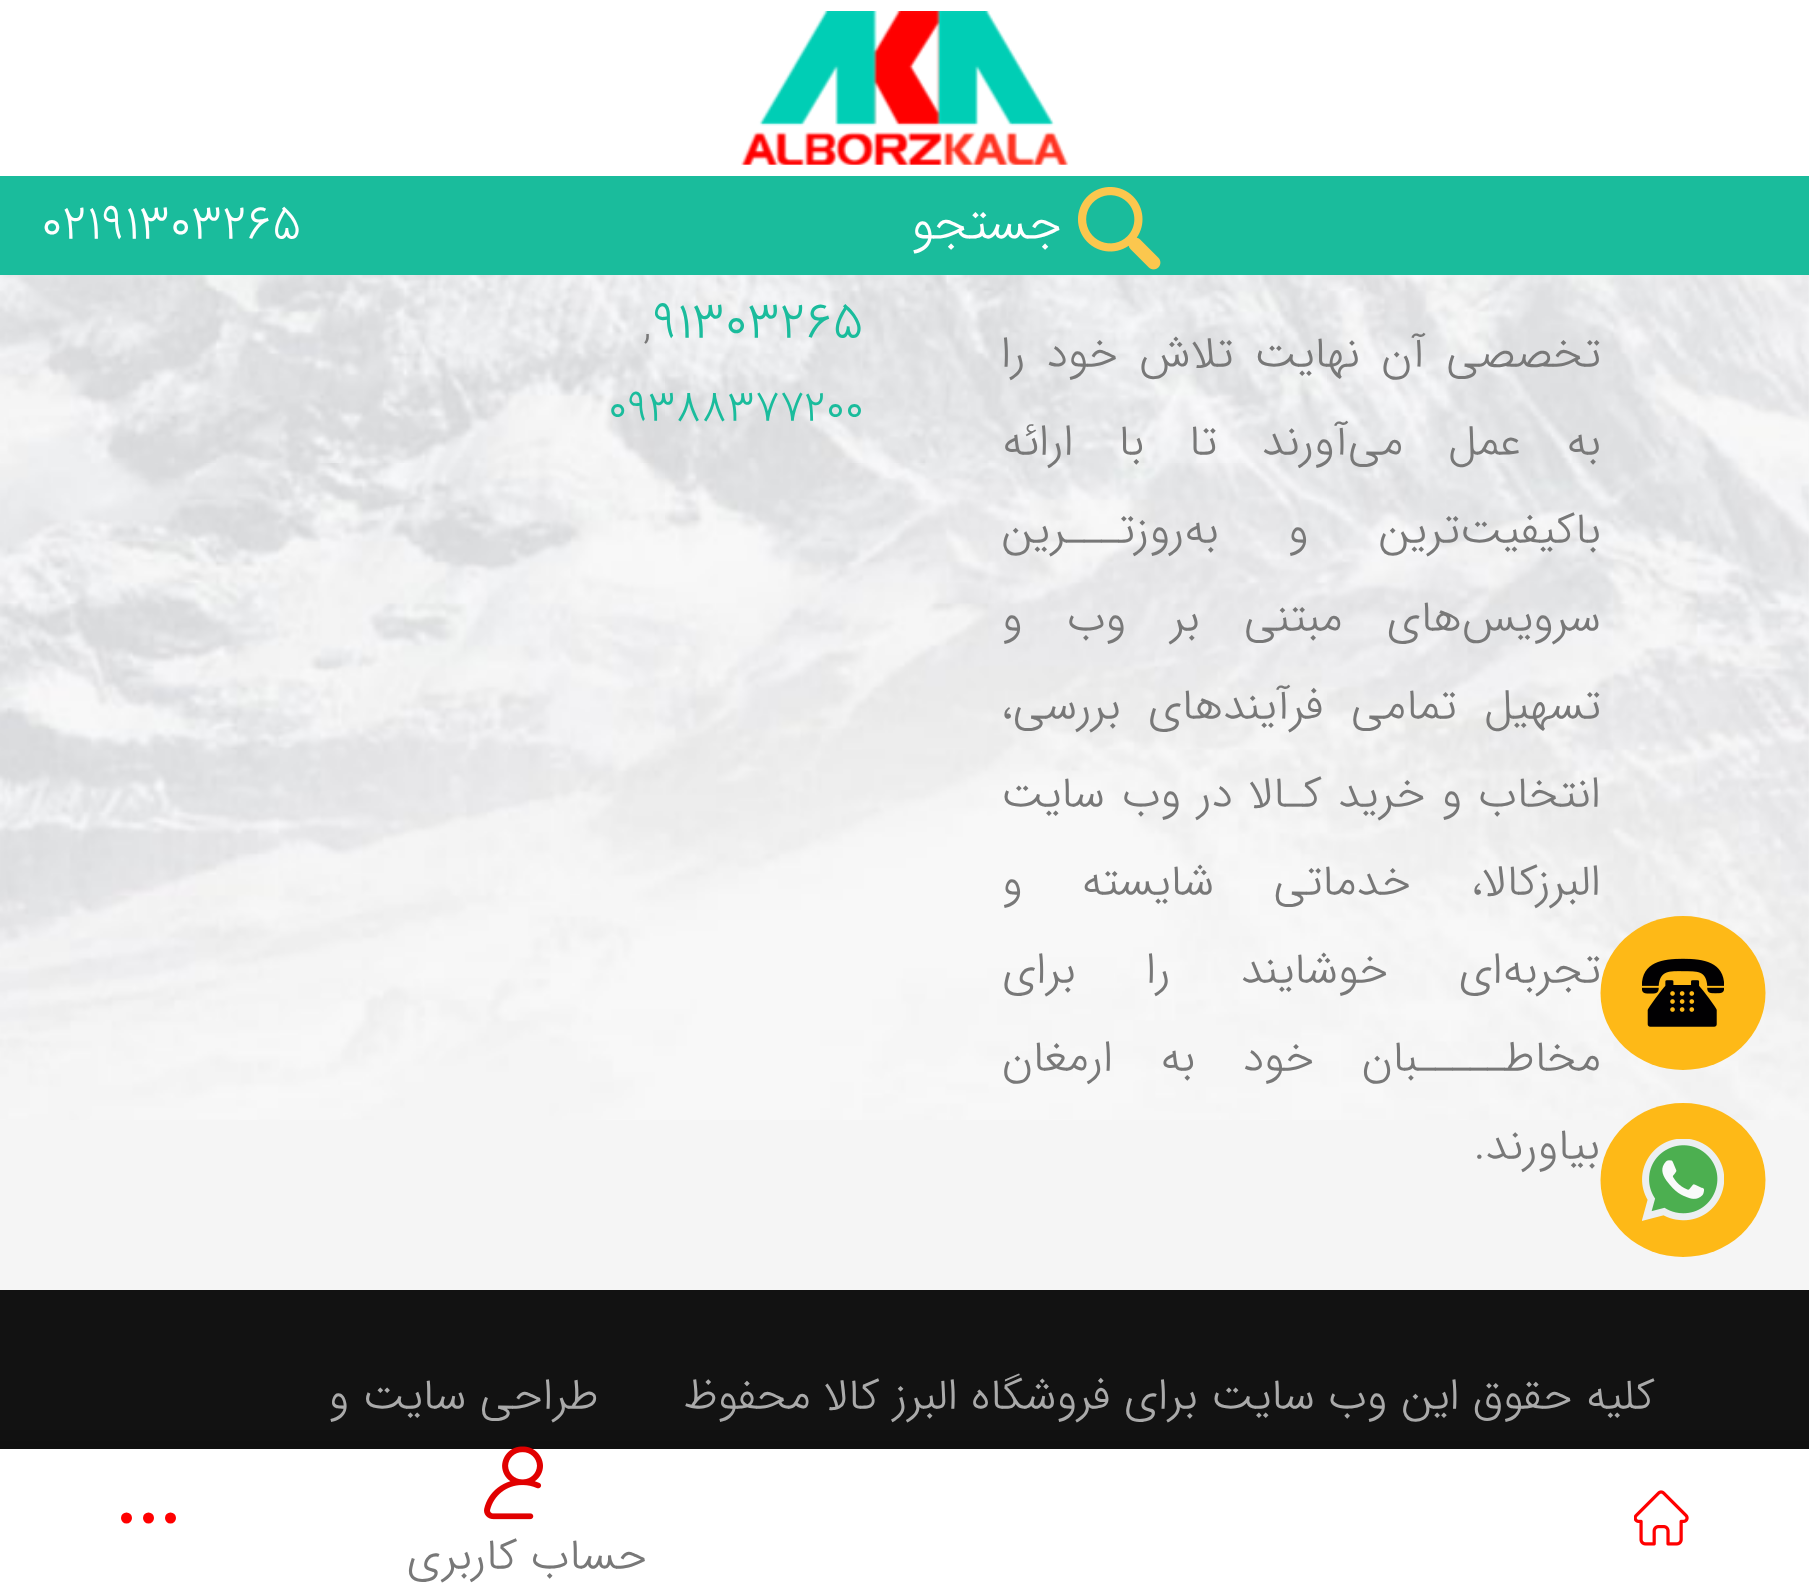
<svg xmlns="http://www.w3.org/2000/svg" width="1809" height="1586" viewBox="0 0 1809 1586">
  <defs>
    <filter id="blur1" x="-50%" y="-200%" width="200%" height="500%"><feGaussianBlur stdDeviation="14"/></filter>
  </defs>
  <rect width="100%" height="100%" fill="#f5f5f5"/>
  <rect x="0" y="0" width="1809" height="176" fill="#ffffff"/>
  <image x="741" y="11" width="328" height="154" href="img1.png"/>
  <rect x="0" y="176" width="1809" height="99" fill="#1abc9c"/>
  <image x="1078" y="187" width="83" height="83" href="img2.png"/>
  <text x="1062" y="239" font-family="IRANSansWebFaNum" font-size="49.5" font-weight="300" direction="rtl" fill="#ffffff">جستجو</text>
  <text x="41" y="239" font-family="IRANSansWebFaNum" font-size="49.5" font-weight="300" fill="#ffffff">02191303265</text>
  <image x="0" y="275" width="1809" height="845" href="img5.png"/>
  <ellipse cx="1683" cy="993" rx="82.5" ry="77" fill="#feb917"/>
  <image x="1642" y="958" width="82" height="69" href="img3.png"/>
  <ellipse cx="1683" cy="1180" rx="82.5" ry="77" fill="#feb917"/>
  <image x="1642" y="1139" width="82" height="82" href="img4.png"/>
  <text x="1601" y="367" word-spacing="7.5" font-family="IRANSansWebFaNum" font-size="44" font-weight="300" direction="rtl" fill="#787878">تخصصی آن نهایت تلاش خود را</text>
  <text x="1601" y="455" word-spacing="31.5" font-family="IRANSansWebFaNum" font-size="44" font-weight="300" direction="rtl" fill="#787878">به عمل می‌آورند تا با ارائه</text>
  <text x="1601" y="543" word-spacing="56" font-family="IRANSansWebFaNum" font-size="44" font-weight="300" direction="rtl" fill="#787878">باکیفیت‌ترین و به‌روزتـــرین</text>
  <text x="1601" y="631" word-spacing="31" font-family="IRANSansWebFaNum" font-size="44" font-weight="300" direction="rtl" fill="#787878">سرویس‌های مبتنی بر وب و</text>
  <text x="1601" y="719" word-spacing="14" font-family="IRANSansWebFaNum" font-size="44" font-weight="300" direction="rtl" fill="#787878">تسهیل تمامی فرآیندهای بررسی،</text>
  <text x="1601" y="807" word-spacing="2.75" font-family="IRANSansWebFaNum" font-size="44" font-weight="300" direction="rtl" fill="#787878">انتخاب و خرید کـالا در وب</text>
  <text x="1105" y="807" font-family="IRANSansWebFaNum" font-size="44" font-weight="300" direction="rtl" fill="#787878">سایت</text>
  <text x="1601" y="895" word-spacing="46" font-family="IRANSansWebFaNum" font-size="44" font-weight="300" direction="rtl" fill="#787878">البرزکالا، خدماتی شایسته و</text>
  <text x="1601" y="983" word-spacing="57" font-family="IRANSansWebFaNum" font-size="44" font-weight="300" direction="rtl" fill="#787878">تجربه‌ای خوشایند را برای</text>
  <text x="1601" y="1071" word-spacing="34" font-family="IRANSansWebFaNum" font-size="44" font-weight="300" direction="rtl" fill="#787878">مخاطـــــبان خود به ارمغان</text>
  <text x="1600" y="1159" font-family="IRANSansWebFaNum" font-size="44" font-weight="300" direction="rtl" fill="#787878">بیاورند.</text>
  <text x="652" y="338" font-family="IRANSansWebFaNum" font-size="52.25" font-weight="300" fill="#1abc9c">91303265</text>
  <text x="643" y="338" font-family="IRANSansWebFaNum" font-size="44" font-weight="300" fill="#787878">,</text>
  <text x="608" y="421" font-family="IRANSansWebFaNum" font-size="44" font-weight="300" fill="#1abc9c">09388377200</text>
  <rect x="0" y="1290" width="1809" height="159" fill="#121212"/>
  <text x="1655" y="1409" font-family="IRANSansWebFaNum" font-size="44" font-weight="300" direction="rtl" fill="#aaaaaa">کلیه حقوق این وب سایت برای فروشگاه البرز کالا محفوظ</text>
  <text x="599" y="1409" font-family="IRANSansWebFaNum" font-size="44" font-weight="300" direction="rtl" fill="#aaaaaa">طراحی سایت و</text>
  <rect x="-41" y="1444" width="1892" height="137" fill="#000000" fill-opacity="0.2" filter="url(#blur1)"/>
  <rect x="0" y="1449" width="1809" height="137" fill="#ffffff"/>
  <image x="1634" y="1490" width="55" height="56" href="img6.png"/>
  <circle cx="170.5" cy="1518" r="5.5" fill="#ff0000"/>
  <circle cx="148.5" cy="1518" r="5.5" fill="#ff0000"/>
  <circle cx="126.5" cy="1518" r="5.5" fill="#ff0000"/>
  <image x="484" y="1446" width="59" height="74" href="img7.png"/>
  <text x="647" y="1569" font-family="IRANSansWebFaNum" font-size="44" font-weight="300" direction="rtl" fill="#787878">حساب کاربری</text>
</svg>
